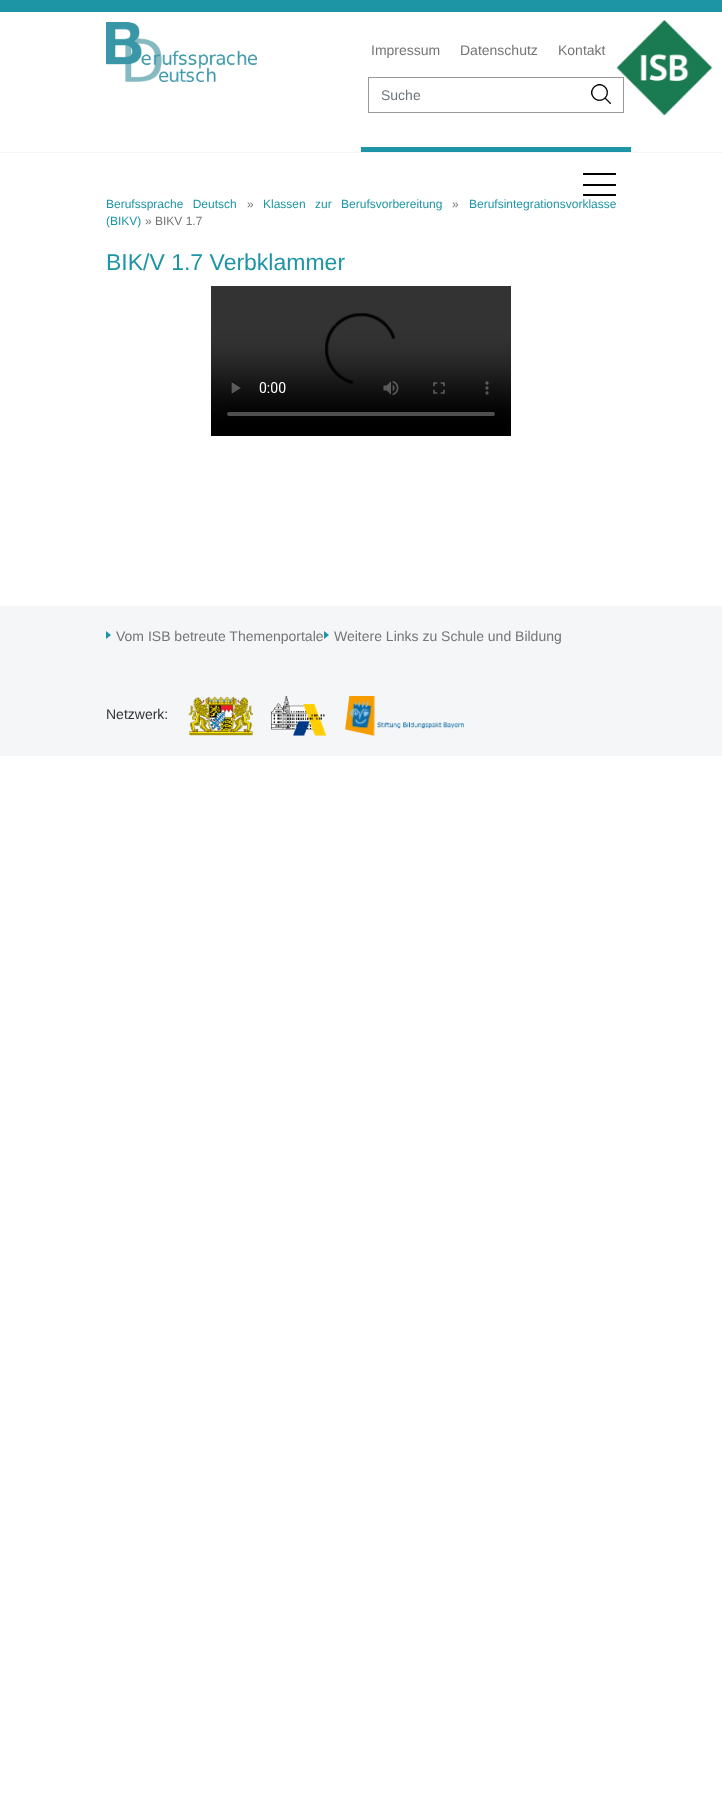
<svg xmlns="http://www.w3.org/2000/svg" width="722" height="1798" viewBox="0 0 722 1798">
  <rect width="100%" height="100%" fill="#ffffff"/>
  <rect x="0" y="0" width="722" height="12" fill="#1d95a5"/>
  <rect x="0" y="152" width="722" height="1" fill="#f5f6f8"/>
  <image x="106" y="22" width="151" height="60" href="img1.png"/>
  <rect x="361" y="147" width="270" height="5" fill="#1d95a5"/>
  <text x="371" y="55" font-family="Liberation Sans" font-size="14" fill="#757575">Impressum</text>
  <text x="460" y="55" font-family="Liberation Sans" font-size="14" fill="#757575">Datenschutz</text>
  <text x="558" y="55" font-family="Liberation Sans" font-size="14" fill="#757575">Kontakt</text>
  <rect x="368.5" y="77.5" width="255" height="35" fill="none" stroke="#999999"/>
  <text x="381" y="100" font-family="Liberation Sans" font-size="14" fill="#6c757d">Suche</text>
  <image x="591" y="84" width="20" height="20" href="img2.png"/>
  <image x="616" y="20" width="96" height="96" href="img3.png"/>
  <image x="583" y="173" width="33" height="23" href="img4.png"/>
  <text x="106" y="208" word-spacing="6" font-family="Liberation Sans" font-size="12" fill="#1d95a5">Berufssprache Deutsch</text>
  <text x="247" y="208" font-family="Liberation Sans" font-size="12" fill="#757575">»</text>
  <text x="263" y="208" word-spacing="6" font-family="Liberation Sans" font-size="12" fill="#1d95a5">Klassen zur Berufsvorbereitung</text>
  <text x="452" y="208" font-family="Liberation Sans" font-size="12" fill="#757575">»</text>
  <text x="469" y="208" font-family="Liberation Sans" font-size="12" fill="#1d95a5">Berufsintegrationsvorklasse</text>
  <text x="106" y="225" font-family="Liberation Sans" font-size="12" fill="#1d95a5">(BIKV)</text>
  <text x="145" y="225" font-family="Liberation Sans" font-size="12" fill="#757575">» BIKV 1.7</text>
  <text x="106" y="270" font-family="Liberation Sans" font-size="23" fill="#1d95a5">BIK/V 1.7 Verbklammer</text>
  <image x="211" y="286" width="300" height="150" href="img5.png"/>
  <rect x="0" y="606" width="722" height="150" fill="#f5f6f8"/>
  <path d="M106 639V631L111 635Z" fill="#1d95a5"/>
  <text x="116" y="641" font-family="Liberation Sans" font-size="14" fill="#757575">Vom ISB betreute Themenportale</text>
  <path d="M324 639V631L329 635Z" fill="#1d95a5"/>
  <text x="334" y="641" font-family="Liberation Sans" font-size="14" fill="#757575">Weitere Links zu Schule und Bildung</text>
  <text x="106" y="719" font-family="Liberation Sans" font-size="14" fill="#333333">Netzwerk:</text>
  <image x="188" y="696" width="65" height="40" href="img6.png"/>
  <image x="271" y="696" width="55" height="40" href="img7.png"/>
  <image x="345" y="696" width="119" height="40" href="img8.png"/>
</svg>
